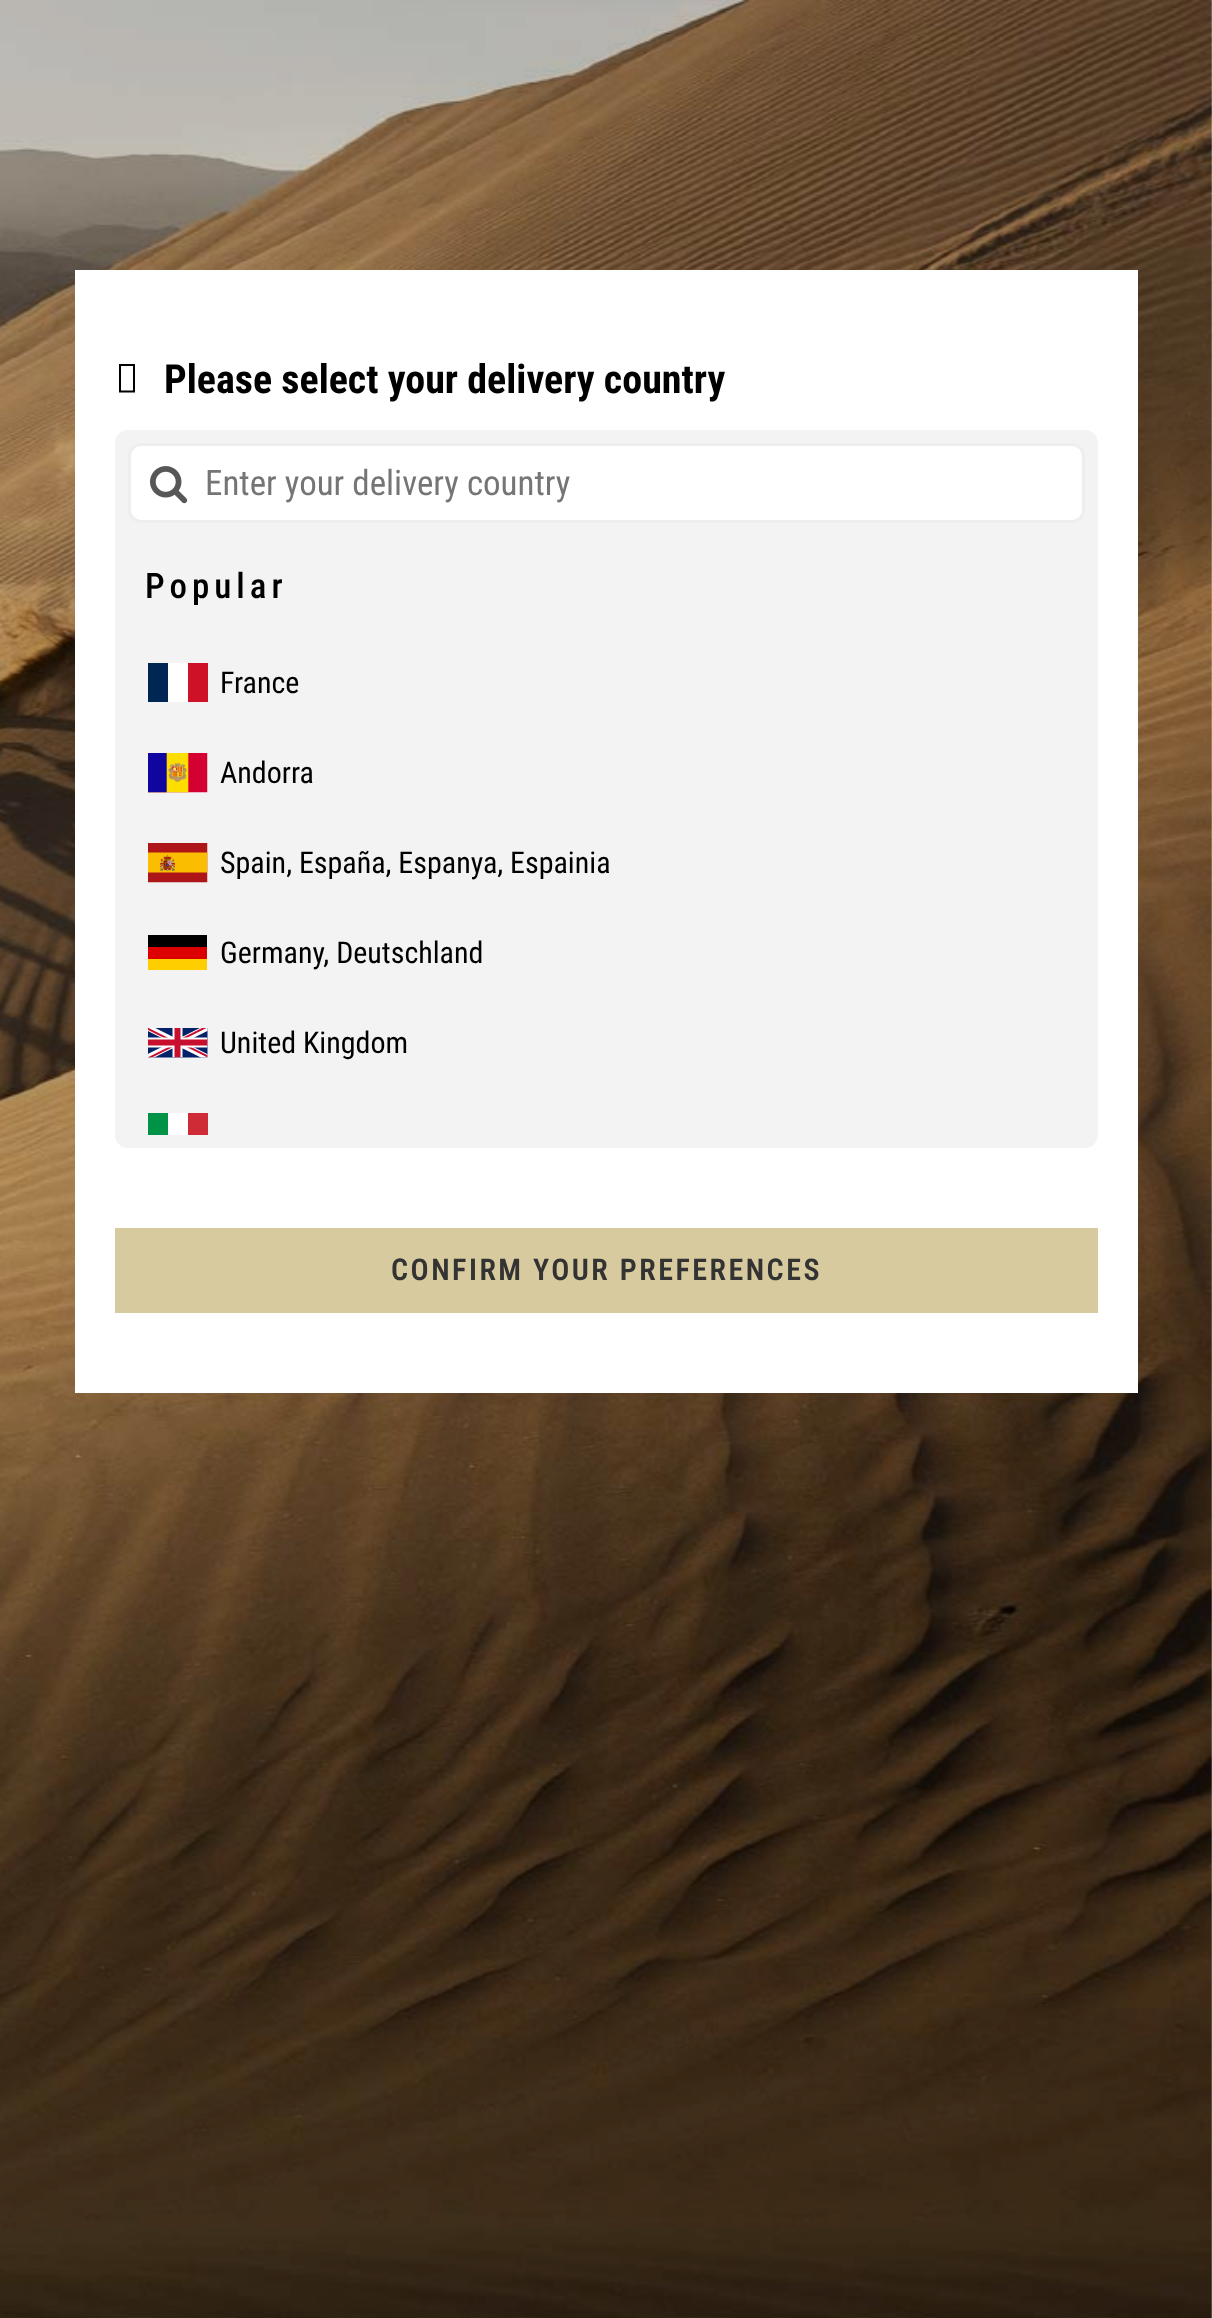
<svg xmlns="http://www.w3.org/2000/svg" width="1212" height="2318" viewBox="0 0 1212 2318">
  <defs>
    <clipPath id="clip1"><rect x="148" y="663" width="60" height="40"/></clipPath>
  </defs>
  <rect width="100%" height="100%" fill="#ffffff"/>
  <image x="0" y="0" width="1212" height="2318" href="img1.png"/>
  <rect x="75" y="270" width="1063" height="1123" fill="#ffffff"/>
  <path d="M119 392.5V364H135V392.5ZM121 390.5H133V366H121Z" fill="#000000"/>
  <text x="164" y="393" font-family="Roboto Condensed" font-size="40" font-weight="bold" fill="#000000">Please select your delivery country</text>
  <rect x="115" y="430" width="983" height="718" rx="13" fill="#f3f3f3"/>
  <rect x="129.5" y="444.5" width="954" height="77" rx="11.5" fill="#ffffff" stroke="#eeeeee" stroke-width="3"/>
  <image x="150" y="466" width="38" height="38" href="img2.png"/>
  <text x="205" y="495" font-family="Roboto Condensed" font-size="35" fill="#757575">Enter your delivery country</text>
  <text x="145" y="598" font-family="Roboto Condensed" font-size="35" font-weight="500" letter-spacing="5" fill="#000000">Popular</text>
  <g clip-path="url(#clip1)">
    <path d="M148 662H208V702H148" fill="#ce1126"/>
    <path d="M148 662H188V702H148" fill="#ffffff"/>
    <path d="M148 662H168V702H148" fill="#002654"/>
  </g>
  <text x="220" y="693" font-family="Roboto Condensed" font-size="30" fill="#000000">France</text>
  <image x="148" y="753" width="60" height="40" href="img3.png"/>
  <text x="220" y="783" font-family="Roboto Condensed" font-size="30" fill="#000000">Andorra</text>
  <image x="148" y="843" width="60" height="40" href="img4.png"/>
  <text x="220" y="873" font-family="Roboto Condensed" font-size="30" fill="#000000">Spain, España, Espanya, Espainia</text>
  <rect x="148" y="935" width="59" height="12" fill="#000000"/>
  <rect x="148" y="947" width="59" height="12" fill="#dd0000"/>
  <rect x="148" y="959" width="59" height="11" fill="#ffce00"/>
  <text x="220" y="963" font-family="Roboto Condensed" font-size="30" fill="#000000">Germany, Deutschland</text>
  <image x="148" y="1028" width="60" height="30" href="img5.png"/>
  <text x="220" y="1053" font-family="Roboto Condensed" font-size="30" fill="#000000">United Kingdom</text>
  <rect x="148" y="1113" width="20" height="22" fill="#009246"/>
  <rect x="168" y="1113" width="20" height="22" fill="#ffffff"/>
  <rect x="188" y="1113" width="20" height="22" fill="#ce2b37"/>
  <rect x="115" y="1228" width="983" height="85" fill="#d7ca9e"/>
  <text x="391" y="1280" font-family="Roboto Condensed" font-size="30" font-weight="600" letter-spacing="2.5" fill="#333333">CONFIRM YOUR PREFERENCES</text>
</svg>
